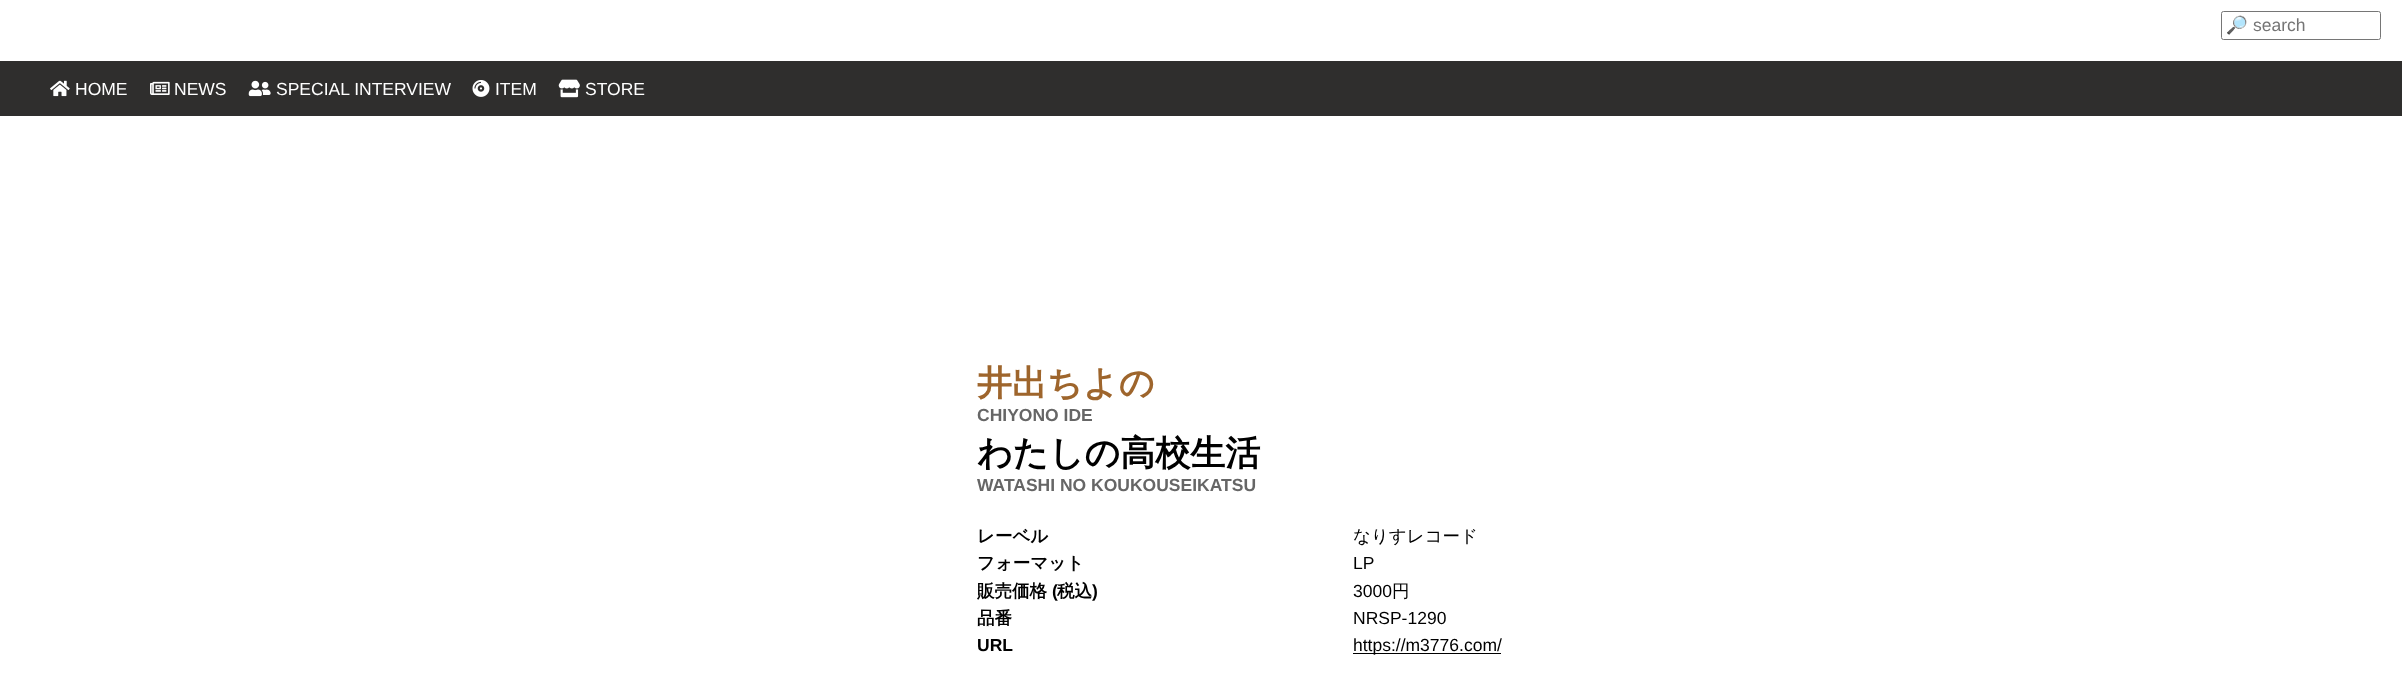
<svg xmlns="http://www.w3.org/2000/svg" width="2402" height="694" viewBox="0 0 2402 694">
  <rect width="100%" height="100%" fill="#ffffff"/>
  <rect x="2221.5" y="11.5" width="159" height="28" rx="2" fill="none" stroke="#767676"/>
  <text x="2226" y="31" font-family="Noto Color Emoji" font-size="17.5" fill="#757575">🔎</text>
  <text x="2253" y="31" font-family="Liberation Sans" font-size="17.5" fill="#757575">search</text>
  <rect x="0" y="61" width="2402" height="55" fill="#2f2e2d"/>
  <image x="50" y="80" width="20" height="17" href="img1.png"/>
  <text x="75" y="95" font-family="Liberation Sans" font-size="17.5" fill="#ffffff">HOME</text>
  <image x="150" y="81" width="20" height="14" href="img2.png"/>
  <text x="174" y="95" font-family="Liberation Sans" font-size="17.5" fill="#ffffff">NEWS</text>
  <image x="248" y="80" width="23" height="17" href="img3.png"/>
  <text x="276" y="95" font-family="Liberation Sans" font-size="17.5" fill="#ffffff">SPECIAL INTERVIEW</text>
  <image x="472" y="80" width="18" height="17" href="img4.png"/>
  <text x="495" y="95" font-family="Liberation Sans" font-size="17.5" fill="#ffffff">ITEM</text>
  <image x="558" y="79" width="22" height="19" href="img5.png"/>
  <text x="585" y="95" font-family="Liberation Sans" font-size="17.5" fill="#ffffff">STORE</text>
  <text x="977" y="395" font-family="WenQuanYi Zen Hei" font-size="35" font-weight="bold" fill="#9e652c">井出ちよの</text>
  <text x="977" y="421" font-family="Liberation Sans" font-size="17.5" font-weight="bold" fill="#666666">CHIYONO IDE</text>
  <text x="977" y="465" font-family="WenQuanYi Zen Hei" font-size="35" font-weight="bold" fill="#000000">わたしの高校生活</text>
  <text x="977" y="491" font-family="Liberation Sans" font-size="17.5" font-weight="bold" fill="#666666">WATASHI NO KOUKOUSEIKATSU</text>
  <text x="977" y="542" font-family="WenQuanYi Zen Hei" font-size="17.5" font-weight="bold" fill="#000000">レーベル</text>
  <text x="1353" y="542" font-family="WenQuanYi Zen Hei" font-size="17.5" font-weight="500" fill="#000000">なりすレコード</text>
  <text x="977" y="569" font-family="WenQuanYi Zen Hei" font-size="17.5" font-weight="bold" fill="#000000">フォーマット</text>
  <text x="1353" y="569" font-family="Liberation Sans" font-size="17.5" fill="#000000">LP</text>
  <text x="977" y="597" font-family="WenQuanYi Zen Hei" font-size="17.5" font-weight="bold" fill="#000000">販売価格</text>
  <text x="1052" y="597" font-family="Liberation Sans" font-size="17.5" font-weight="bold" fill="#000000">(</text>
  <text x="1057" y="597" font-family="WenQuanYi Zen Hei" font-size="17.5" font-weight="bold" fill="#000000">税込</text>
  <text x="1092" y="597" font-family="Liberation Sans" font-size="17.5" font-weight="bold" fill="#000000">)</text>
  <text x="1353" y="597" font-family="Liberation Sans" font-size="17.5" fill="#000000">3000</text>
  <text x="1392" y="597" font-family="WenQuanYi Zen Hei" font-size="17.5" font-weight="500" fill="#000000">円</text>
  <text x="977" y="624" font-family="WenQuanYi Zen Hei" font-size="17.5" font-weight="bold" fill="#000000">品番</text>
  <text x="1353" y="624" font-family="Liberation Sans" font-size="17.5" fill="#000000">NRSP-1290</text>
  <text x="977" y="651" font-family="Liberation Sans" font-size="17.5" font-weight="bold" fill="#000000">URL</text>
  <rect x="1353" y="653" width="148" height="1" fill="#000000"/>
  <text x="1353" y="651" font-family="Liberation Sans" font-size="17.5" fill="#000000">https://m3776.com/</text>
</svg>
